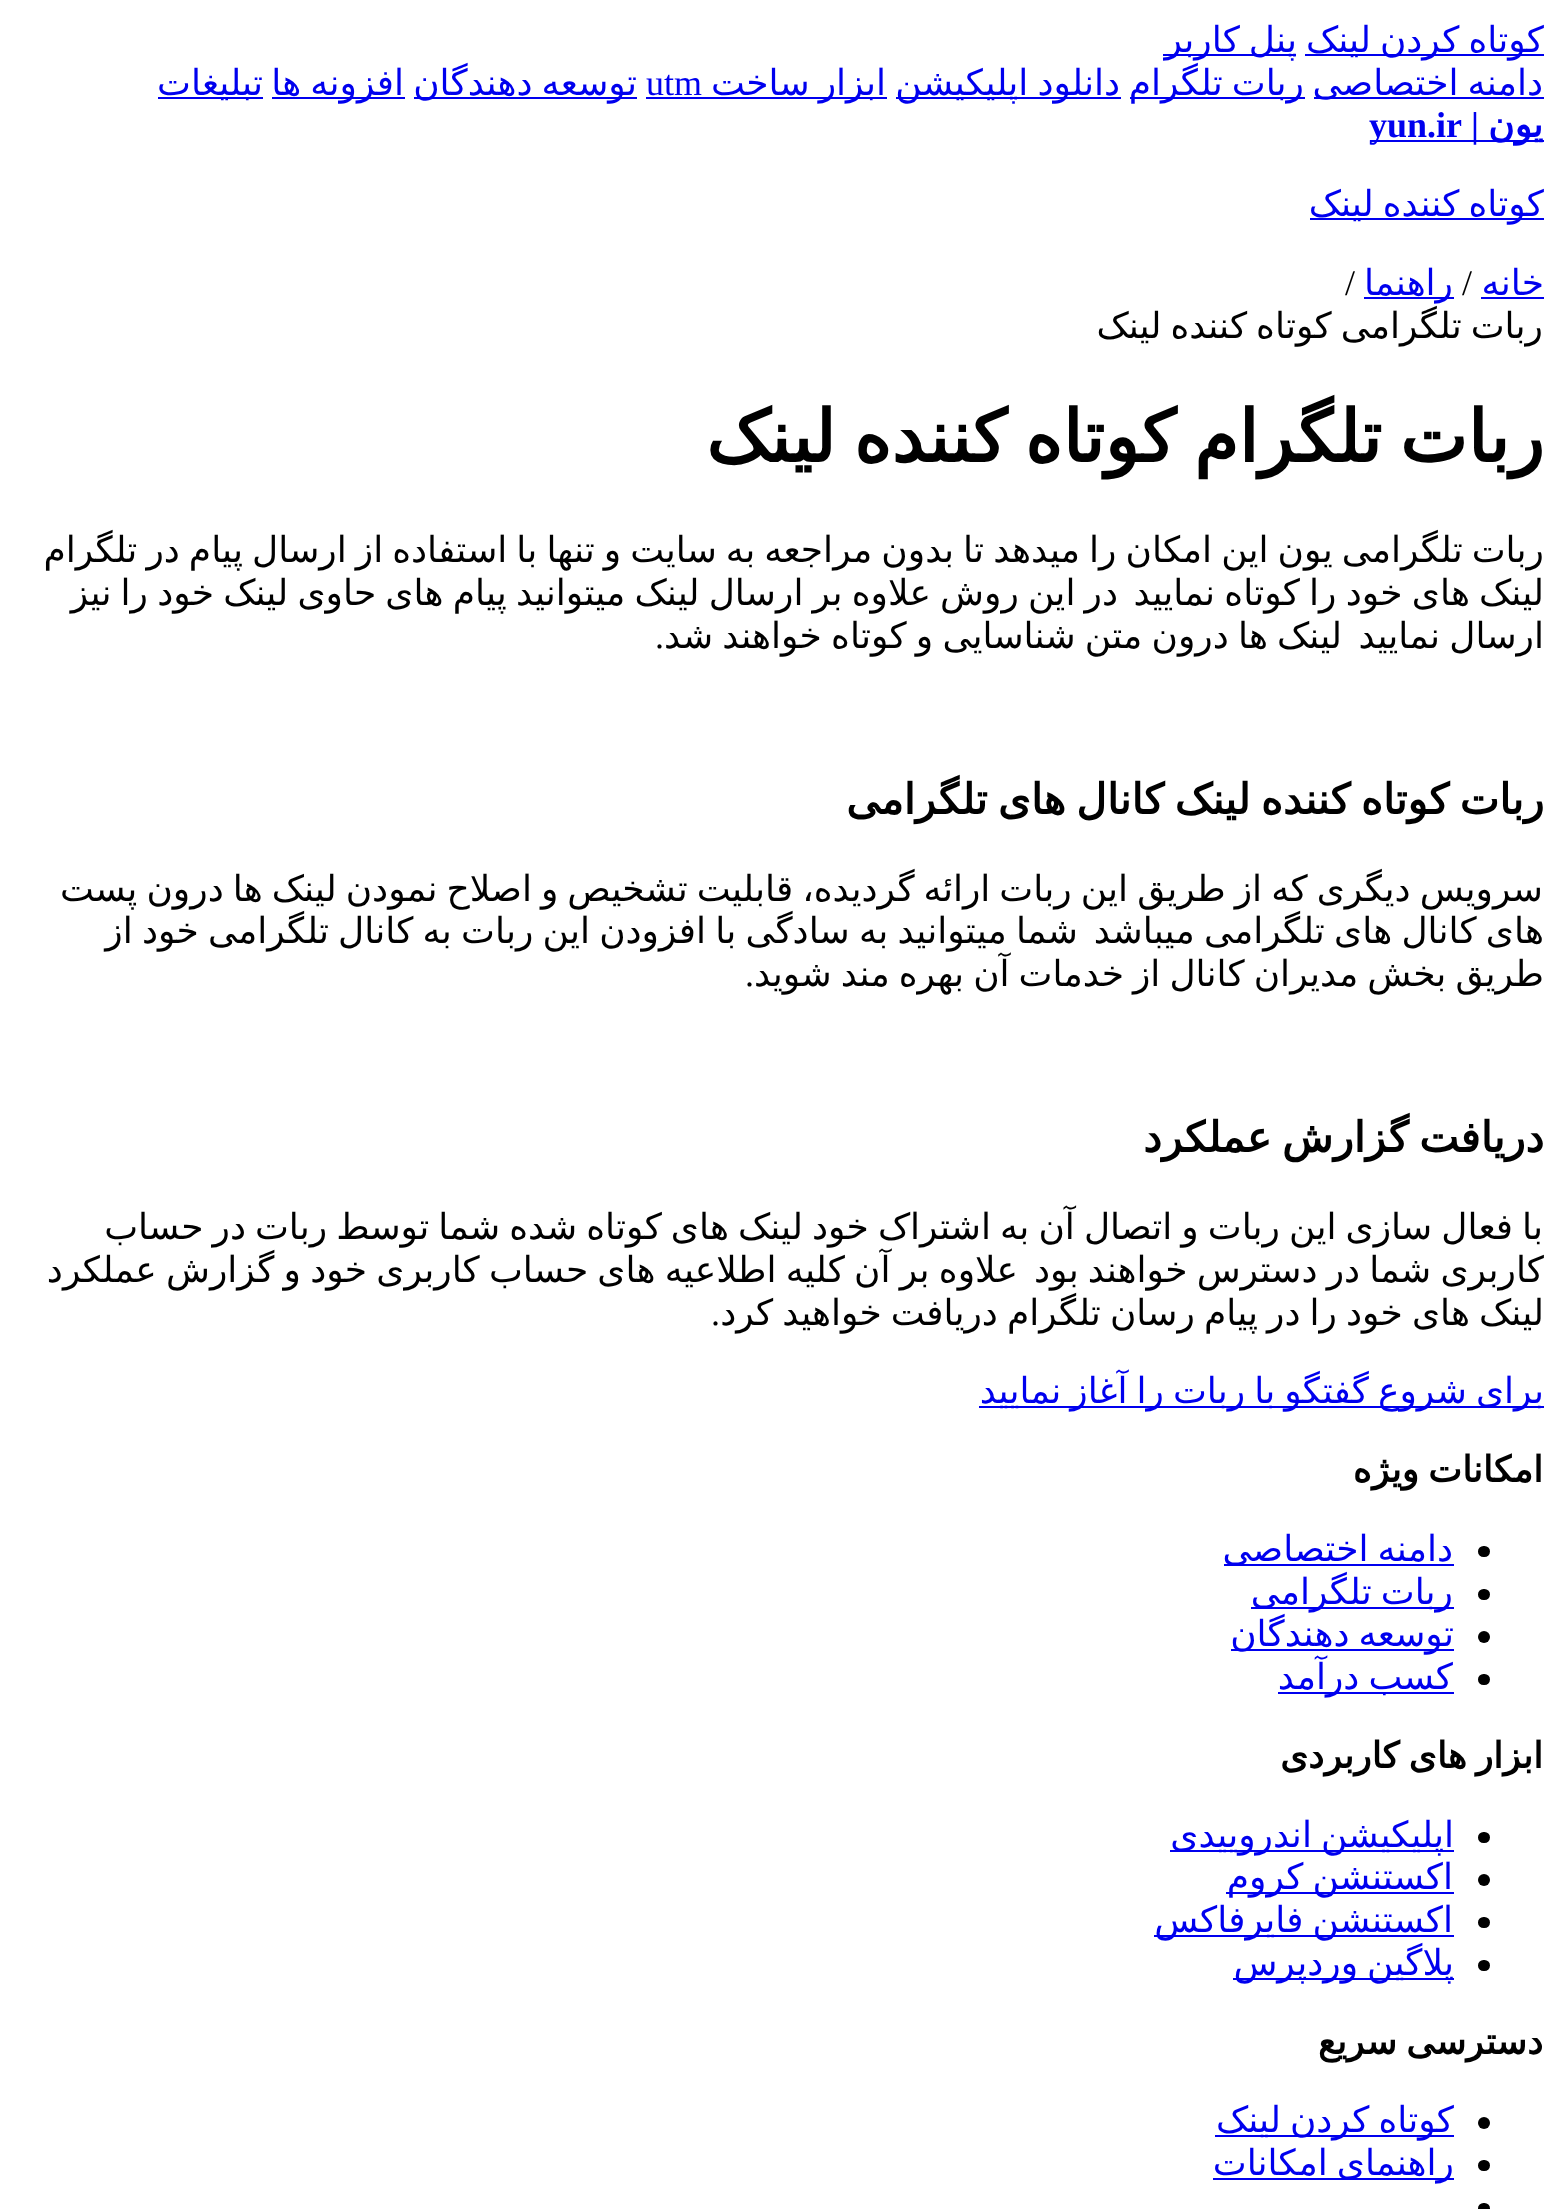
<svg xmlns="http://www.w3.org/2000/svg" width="1561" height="2209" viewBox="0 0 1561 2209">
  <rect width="100%" height="100%" fill="#ffffff"/>
  <rect x="1305" y="54" width="239" height="2" fill="#0000ee"/>
  <text x="1544" y="52" word-spacing="-2.4" font-family="DejaVu Sans" font-size="36" direction="rtl" fill="#0000ee">کوتاه کردن لینک</text>
  <rect x="1163" y="54" width="133" height="2" fill="#0000ee"/>
  <text x="1297" y="52" word-spacing="-2.4" font-family="DejaVu Sans" font-size="36" direction="rtl" fill="#0000ee">پنل کاربر</text>
  <rect x="1314" y="97" width="230" height="2" fill="#0000ee"/>
  <text x="1543" y="95" word-spacing="-2.4" font-family="DejaVu Sans" font-size="36" direction="rtl" fill="#0000ee">دامنه اختصاصی</text>
  <rect x="1130" y="97" width="175" height="2" fill="#0000ee"/>
  <text x="1304" y="95" word-spacing="-2.4" font-family="DejaVu Sans" font-size="36" direction="rtl" fill="#0000ee">ربات تلگرام</text>
  <rect x="896" y="97" width="225" height="2" fill="#0000ee"/>
  <text x="1120" y="95" word-spacing="-2.4" font-family="DejaVu Sans" font-size="36" direction="rtl" fill="#0000ee">دانلود اپلیکیشن</text>
  <rect x="646" y="97" width="241" height="2" fill="#0000ee"/>
  <text x="886" y="95" word-spacing="-2.4" font-family="DejaVu Sans" font-size="36" direction="rtl" fill="#0000ee">ابزار ساخت</text>
  <text x="646" y="95" font-family="Liberation Serif" font-size="36" fill="#0000ee">utm</text>
  <rect x="414" y="97" width="223" height="2" fill="#0000ee"/>
  <text x="637" y="95" word-spacing="-2.4" font-family="DejaVu Sans" font-size="36" direction="rtl" fill="#0000ee">توسعه دهندگان</text>
  <rect x="272" y="97" width="133" height="2" fill="#0000ee"/>
  <text x="404" y="95" word-spacing="-2.4" font-family="DejaVu Sans" font-size="36" direction="rtl" fill="#0000ee">افزونه ها</text>
  <rect x="158" y="97" width="105" height="2" fill="#0000ee"/>
  <text x="263" y="95" font-family="DejaVu Sans" font-size="36" direction="rtl" fill="#0000ee">تبلیغات</text>
  <rect x="1370" y="140" width="174" height="2" fill="#0000ee"/>
  <text x="1543" y="137" font-family="DejaVu Sans" font-size="36" font-weight="bold" direction="rtl" fill="#0000ee">یون</text>
  <text x="1479" y="137" font-family="Liberation Serif" font-size="36" font-weight="bold" direction="rtl" fill="#0000ee">|</text>
  <text x="1369" y="137" font-family="Liberation Serif" font-size="36" font-weight="bold" fill="#0000ee">yun.ir</text>
  <rect x="1310" y="218" width="234" height="2" fill="#0000ee"/>
  <text x="1544" y="216" word-spacing="-2.4" font-family="DejaVu Sans" font-size="36" direction="rtl" fill="#0000ee">کوتاه کننده لینک</text>
  <text x="1544" y="295" font-family="DejaVu Sans" font-size="36" direction="rtl" fill="#0000ee">خانه</text>
  <rect x="1481" y="297" width="63" height="2" fill="#0000ee"/>
  <text x="1462" y="295" font-family="Liberation Serif" font-size="36" fill="#000000">/</text>
  <rect x="1364" y="297" width="90" height="2" fill="#0000ee"/>
  <text x="1453" y="295" font-family="DejaVu Sans" font-size="36" direction="rtl" fill="#0000ee">راهنما</text>
  <text x="1345" y="295" font-family="Liberation Serif" font-size="36" fill="#000000">/</text>
  <text x="1543" y="338" word-spacing="-2.4" font-family="DejaVu Sans" font-size="36" direction="rtl" fill="#000000">ربات تلگرامی کوتاه کننده لینک</text>
  <text x="1544" y="462" word-spacing="-5" font-family="DejaVu Sans" font-size="72" font-weight="bold" direction="rtl" fill="#000000">ربات تلگرام کوتاه کننده لینک</text>
  <text x="1544" y="562" word-spacing="-2.4" font-family="DejaVu Sans" font-size="36" direction="rtl" fill="#000000">ربات تلگرامی یون این امکان را میدهد تا بدون مراجعه به سایت و تنها با استفاده از ارسال پیام در تلگرام</text>
  <text x="1544" y="605" word-spacing="-2.25" font-family="DejaVu Sans" font-size="36" direction="rtl" fill="#000000">لینک های خود را کوتاه نمایید</text>
  <text x="1118" y="605" word-spacing="-2.25" font-family="DejaVu Sans" font-size="36" direction="rtl" fill="#000000">در این روش علاوه بر ارسال لینک میتوانید پیام های حاوی لینک خود را نیز</text>
  <text x="1544" y="648" word-spacing="-2.25" font-family="DejaVu Sans" font-size="36" direction="rtl" fill="#000000">ارسال نمایید</text>
  <text x="1342" y="648" word-spacing="-2.25" font-family="DejaVu Sans" font-size="36" direction="rtl" fill="#000000">لینک ها درون متن شناسایی و کوتاه خواهند شد</text>
  <text x="664" y="648" font-family="Liberation Serif" font-size="36" direction="rtl" fill="#000000">.</text>
  <text x="1544" y="814" word-spacing="-3" font-family="DejaVu Sans" font-size="42.1" font-weight="bold" direction="rtl" fill="#000000">ربات کوتاه کننده لینک کانال های تلگرامی</text>
  <text x="1543" y="901" word-spacing="-2.4" font-family="DejaVu Sans" font-size="36" direction="rtl" fill="#000000">سرویس دیگری که از طریق این ربات ارائه گردیده، قابلیت تشخیص و اصلاح نمودن لینک ها درون پست</text>
  <text x="1544" y="943" word-spacing="-2.25" font-family="DejaVu Sans" font-size="36" direction="rtl" fill="#000000">های کانال های تلگرامی میباشد</text>
  <text x="1078" y="943" word-spacing="-2.25" font-family="DejaVu Sans" font-size="36" direction="rtl" fill="#000000">شما میتوانید به سادگی با افزودن این ربات به کانال تلگرامی خود از</text>
  <text x="1544" y="986" word-spacing="-2.4" font-family="DejaVu Sans" font-size="36" direction="rtl" fill="#000000">طریق بخش مدیران کانال از خدمات آن بهره مند شوید</text>
  <text x="754" y="986" font-family="Liberation Serif" font-size="36" direction="rtl" fill="#000000">.</text>
  <text x="1544" y="1152" word-spacing="-3" font-family="DejaVu Sans" font-size="42.1" font-weight="bold" direction="rtl" fill="#000000">دریافت گزارش عملکرد</text>
  <text x="1543" y="1239" word-spacing="-2.4" font-family="DejaVu Sans" font-size="36" direction="rtl" fill="#000000">با فعال سازی این ربات و اتصال آن به اشتراک خود لینک های کوتاه شده شما توسط ربات در حساب</text>
  <text x="1544" y="1282" word-spacing="-2.25" font-family="DejaVu Sans" font-size="36" direction="rtl" fill="#000000">کاربری شما در دسترس خواهند بود</text>
  <text x="1018" y="1282" word-spacing="-2.25" font-family="DejaVu Sans" font-size="36" direction="rtl" fill="#000000">علاوه بر آن کلیه اطلاعیه های حساب کاربری خود و گزارش عملکرد</text>
  <text x="1544" y="1325" word-spacing="-2.4" font-family="DejaVu Sans" font-size="36" direction="rtl" fill="#000000">لینک های خود را در پیام رسان تلگرام دریافت خواهید کرد</text>
  <text x="720" y="1325" font-family="Liberation Serif" font-size="36" direction="rtl" fill="#000000">.</text>
  <rect x="979" y="1406" width="565" height="2" fill="#0000ee"/>
  <text x="1544" y="1403" word-spacing="-2.4" font-family="DejaVu Sans" font-size="36" direction="rtl" fill="#0000ee">برای شروع گفتگو با ربات را آغاز نمایید</text>
  <text x="1543" y="1482" word-spacing="-2.4" font-family="DejaVu Sans" font-size="36" font-weight="bold" direction="rtl" fill="#000000">امکانات ویژه</text>
  <rect x="1478" y="1546" width="12" height="11" rx="5.5" fill="#000000"/>
  <rect x="1224" y="1564" width="230" height="2" fill="#0000ee"/>
  <text x="1453" y="1561" word-spacing="-2.4" font-family="DejaVu Sans" font-size="36" direction="rtl" fill="#0000ee">دامنه اختصاصی</text>
  <rect x="1478" y="1589" width="12" height="11" rx="5.5" fill="#000000"/>
  <rect x="1251" y="1607" width="203" height="2" fill="#0000ee"/>
  <text x="1453" y="1604" word-spacing="-2.4" font-family="DejaVu Sans" font-size="36" direction="rtl" fill="#0000ee">ربات تلگرامی</text>
  <circle cx="1484" cy="1637" r="6" fill="#000000"/>
  <rect x="1231" y="1649" width="223" height="2" fill="#0000ee"/>
  <text x="1454" y="1646" word-spacing="-2.4" font-family="DejaVu Sans" font-size="36" direction="rtl" fill="#0000ee">توسعه دهندگان</text>
  <rect x="1478" y="1674" width="12" height="11" rx="5.5" fill="#000000"/>
  <rect x="1278" y="1692" width="176" height="2" fill="#0000ee"/>
  <text x="1453" y="1689" word-spacing="-2.4" font-family="DejaVu Sans" font-size="36" direction="rtl" fill="#0000ee">کسب درآمد</text>
  <text x="1543" y="1768" word-spacing="-2.4" font-family="DejaVu Sans" font-size="36" font-weight="bold" direction="rtl" fill="#000000">ابزار های کاربردی</text>
  <rect x="1478" y="1832" width="12" height="11" rx="5.5" fill="#000000"/>
  <rect x="1170" y="1850" width="284" height="2" fill="#0000ee"/>
  <text x="1454" y="1847" word-spacing="-2.4" font-family="DejaVu Sans" font-size="36" direction="rtl" fill="#0000ee">اپلیکیشن اندروییدی</text>
  <circle cx="1484" cy="1880" r="6" fill="#000000"/>
  <rect x="1226" y="1892" width="228" height="2" fill="#0000ee"/>
  <text x="1453" y="1889" word-spacing="-2.4" font-family="DejaVu Sans" font-size="36" direction="rtl" fill="#0000ee">اکستنشن کروم</text>
  <rect x="1478" y="1917" width="12" height="11" rx="5.5" fill="#000000"/>
  <rect x="1154" y="1935" width="300" height="2" fill="#0000ee"/>
  <text x="1453" y="1932" word-spacing="-2.4" font-family="DejaVu Sans" font-size="36" direction="rtl" fill="#0000ee">اکستنشن فایرفاکس</text>
  <rect x="1478" y="1960" width="12" height="11" rx="5.5" fill="#000000"/>
  <rect x="1233" y="1978" width="221" height="2" fill="#0000ee"/>
  <text x="1454" y="1975" word-spacing="-2.4" font-family="DejaVu Sans" font-size="36" direction="rtl" fill="#0000ee">پلاگین وردپرس</text>
  <text x="1543" y="2054" word-spacing="-2.4" font-family="DejaVu Sans" font-size="36" font-weight="bold" direction="rtl" fill="#000000">دسترسی سریع</text>
  <circle cx="1484" cy="2123" r="6" fill="#000000"/>
  <rect x="1215" y="2135" width="239" height="2" fill="#0000ee"/>
  <text x="1454" y="2132" word-spacing="-2.4" font-family="DejaVu Sans" font-size="36" direction="rtl" fill="#0000ee">کوتاه کردن لینک</text>
  <rect x="1478" y="2160" width="12" height="11" rx="5.5" fill="#000000"/>
  <rect x="1213" y="2178" width="241" height="2" fill="#0000ee"/>
  <text x="1454" y="2175" word-spacing="-2.4" font-family="DejaVu Sans" font-size="36" direction="rtl" fill="#0000ee">راهنمای امکانات</text>
  <rect x="1478" y="2203" width="12" height="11" rx="5.5" fill="#000000"/>
</svg>
